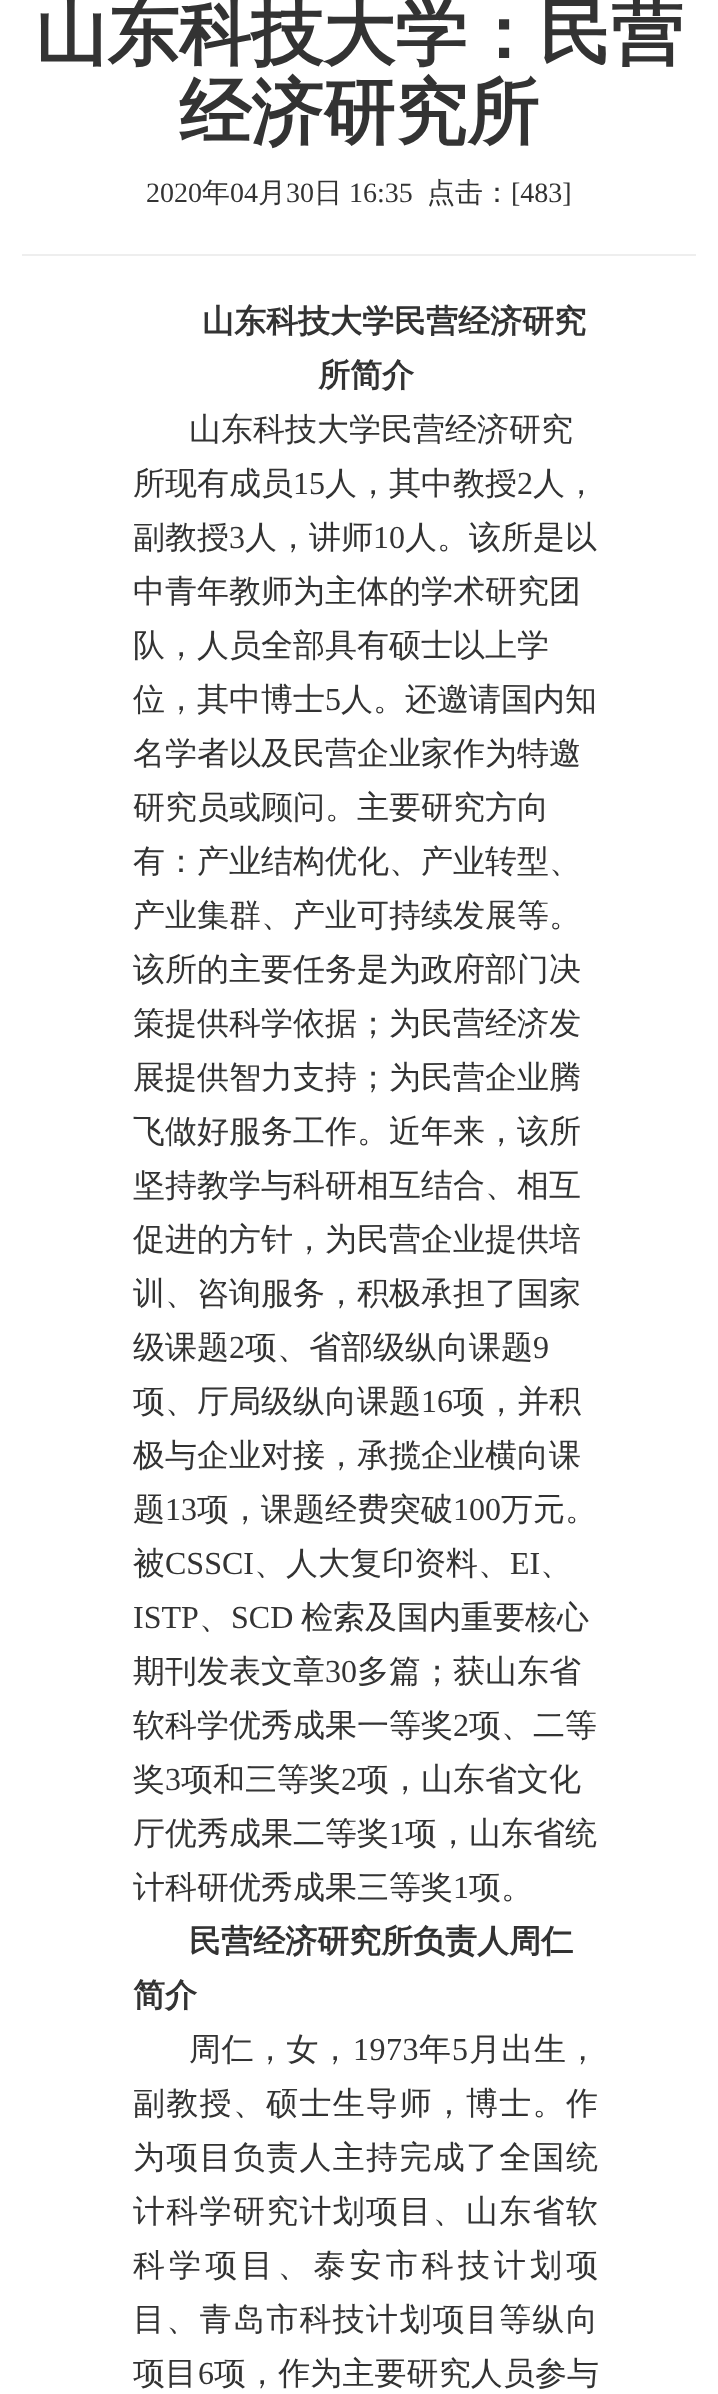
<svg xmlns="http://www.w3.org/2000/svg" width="718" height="2394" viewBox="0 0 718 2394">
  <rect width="100%" height="100%" fill="#ffffff"/>
  <text x="35" y="58" font-family="WenQuanYi Zen Hei" font-size="72" font-weight="bold" fill="#333333">山东科技大学：民营</text>
  <text x="179" y="137" font-family="WenQuanYi Zen Hei" font-size="72" font-weight="bold" fill="#333333">经济研究所</text>
  <text x="146" y="202" font-family="Liberation Serif" font-size="28" fill="#333333">2020</text>
  <text x="202" y="202" font-family="WenQuanYi Zen Hei" font-size="28" font-weight="500" fill="#333333">年</text>
  <text x="230" y="202" font-family="Liberation Serif" font-size="28" fill="#333333">04</text>
  <text x="258" y="202" font-family="WenQuanYi Zen Hei" font-size="28" font-weight="500" fill="#333333">月</text>
  <text x="286" y="202" font-family="Liberation Serif" font-size="28" fill="#333333">30</text>
  <text x="314" y="202" font-family="WenQuanYi Zen Hei" font-size="28" font-weight="500" fill="#333333">日</text>
  <text x="349" y="202" font-family="Liberation Serif" font-size="28" fill="#333333">16:35</text>
  <text x="427" y="202" font-family="WenQuanYi Zen Hei" font-size="28" font-weight="500" fill="#333333">点击：</text>
  <text x="511" y="202" font-family="Liberation Serif" font-size="28" fill="#333333">[483]</text>
  <rect x="22" y="254" width="674" height="2" fill="#eeeeee"/>
  <text x="202" y="332" font-family="WenQuanYi Zen Hei" font-size="32" font-weight="bold" fill="#333333">山东科技大学民营经济研究</text>
  <text x="318" y="386" font-family="WenQuanYi Zen Hei" font-size="32" font-weight="bold" fill="#333333">所简介</text>
  <text x="189" y="440" font-family="WenQuanYi Zen Hei" font-size="32" font-weight="500" fill="#333333">山东科技大学民营经济研究</text>
  <text x="133" y="494" font-family="WenQuanYi Zen Hei" font-size="32" font-weight="500" fill="#333333">所现有成员</text>
  <text x="293" y="494" font-family="Liberation Serif" font-size="32" fill="#333333">15</text>
  <text x="325" y="494" font-family="WenQuanYi Zen Hei" font-size="32" font-weight="500" fill="#333333">人，其中教授</text>
  <text x="517" y="494" font-family="Liberation Serif" font-size="32" fill="#333333">2</text>
  <text x="533" y="494" font-family="WenQuanYi Zen Hei" font-size="32" font-weight="500" fill="#333333">人，</text>
  <text x="133" y="548" font-family="WenQuanYi Zen Hei" font-size="32" font-weight="500" fill="#333333">副教授</text>
  <text x="229" y="548" font-family="Liberation Serif" font-size="32" fill="#333333">3</text>
  <text x="245" y="548" font-family="WenQuanYi Zen Hei" font-size="32" font-weight="500" fill="#333333">人，讲师</text>
  <text x="373" y="548" font-family="Liberation Serif" font-size="32" fill="#333333">10</text>
  <text x="405" y="548" font-family="WenQuanYi Zen Hei" font-size="32" font-weight="500" fill="#333333">人。该所是以</text>
  <text x="133" y="602" font-family="WenQuanYi Zen Hei" font-size="32" font-weight="500" fill="#333333">中青年教师为主体的学术研究团</text>
  <text x="133" y="656" font-family="WenQuanYi Zen Hei" font-size="32" font-weight="500" fill="#333333">队，人员全部具有硕士以上学</text>
  <text x="133" y="710" font-family="WenQuanYi Zen Hei" font-size="32" font-weight="500" fill="#333333">位，其中博士</text>
  <text x="325" y="710" font-family="Liberation Serif" font-size="32" fill="#333333">5</text>
  <text x="341" y="710" font-family="WenQuanYi Zen Hei" font-size="32" font-weight="500" fill="#333333">人。还邀请国内知</text>
  <text x="133" y="764" font-family="WenQuanYi Zen Hei" font-size="32" font-weight="500" fill="#333333">名学者以及民营企业家作为特邀</text>
  <text x="133" y="818" font-family="WenQuanYi Zen Hei" font-size="32" font-weight="500" fill="#333333">研究员或顾问。主要研究方向</text>
  <text x="133" y="872" font-family="WenQuanYi Zen Hei" font-size="32" font-weight="500" fill="#333333">有：产业结构优化、产业转型、</text>
  <text x="133" y="926" font-family="WenQuanYi Zen Hei" font-size="32" font-weight="500" fill="#333333">产业集群、产业可持续发展等。</text>
  <text x="133" y="980" font-family="WenQuanYi Zen Hei" font-size="32" font-weight="500" fill="#333333">该所的主要任务是为政府部门决</text>
  <text x="133" y="1034" font-family="WenQuanYi Zen Hei" font-size="32" font-weight="500" fill="#333333">策提供科学依据；为民营经济发</text>
  <text x="133" y="1088" font-family="WenQuanYi Zen Hei" font-size="32" font-weight="500" fill="#333333">展提供智力支持；为民营企业腾</text>
  <text x="133" y="1142" font-family="WenQuanYi Zen Hei" font-size="32" font-weight="500" fill="#333333">飞做好服务工作。近年来，该所</text>
  <text x="133" y="1196" font-family="WenQuanYi Zen Hei" font-size="32" font-weight="500" fill="#333333">坚持教学与科研相互结合、相互</text>
  <text x="133" y="1250" font-family="WenQuanYi Zen Hei" font-size="32" font-weight="500" fill="#333333">促进的方针，为民营企业提供培</text>
  <text x="133" y="1304" font-family="WenQuanYi Zen Hei" font-size="32" font-weight="500" fill="#333333">训、咨询服务，积极承担了国家</text>
  <text x="133" y="1358" font-family="WenQuanYi Zen Hei" font-size="32" font-weight="500" fill="#333333">级课题</text>
  <text x="229" y="1358" font-family="Liberation Serif" font-size="32" fill="#333333">2</text>
  <text x="245" y="1358" font-family="WenQuanYi Zen Hei" font-size="32" font-weight="500" fill="#333333">项、省部级纵向课题</text>
  <text x="533" y="1358" font-family="Liberation Serif" font-size="32" fill="#333333">9</text>
  <text x="133" y="1412" font-family="WenQuanYi Zen Hei" font-size="32" font-weight="500" fill="#333333">项、厅局级纵向课题</text>
  <text x="421" y="1412" font-family="Liberation Serif" font-size="32" fill="#333333">16</text>
  <text x="453" y="1412" font-family="WenQuanYi Zen Hei" font-size="32" font-weight="500" fill="#333333">项，并积</text>
  <text x="133" y="1466" font-family="WenQuanYi Zen Hei" font-size="32" font-weight="500" fill="#333333">极与企业对接，承揽企业横向课</text>
  <text x="133" y="1520" font-family="WenQuanYi Zen Hei" font-size="32" font-weight="500" fill="#333333">题</text>
  <text x="165" y="1520" font-family="Liberation Serif" font-size="32" fill="#333333">13</text>
  <text x="197" y="1520" font-family="WenQuanYi Zen Hei" font-size="32" font-weight="500" fill="#333333">项，课题经费突破</text>
  <text x="453" y="1520" font-family="Liberation Serif" font-size="32" fill="#333333">100</text>
  <text x="501" y="1520" font-family="WenQuanYi Zen Hei" font-size="32" font-weight="500" fill="#333333">万元。</text>
  <text x="133" y="1574" font-family="WenQuanYi Zen Hei" font-size="32" font-weight="500" fill="#333333">被</text>
  <text x="165" y="1574" font-family="Liberation Serif" font-size="32" fill="#333333">CSSCI</text>
  <text x="254" y="1574" font-family="WenQuanYi Zen Hei" font-size="32" font-weight="500" fill="#333333">、人大复印资料、</text>
  <text x="510" y="1574" font-family="Liberation Serif" font-size="32" fill="#333333">EI</text>
  <text x="540" y="1574" font-family="WenQuanYi Zen Hei" font-size="32" font-weight="500" fill="#333333">、</text>
  <text x="133" y="1628" font-family="Liberation Serif" font-size="32" fill="#333333">ISTP</text>
  <text x="199" y="1628" font-family="WenQuanYi Zen Hei" font-size="32" font-weight="500" fill="#333333">、</text>
  <text x="231" y="1628" font-family="Liberation Serif" font-size="32" fill="#333333">SCD</text>
  <text x="301" y="1628" font-family="WenQuanYi Zen Hei" font-size="32" font-weight="500" fill="#333333">检索及国内重要核心</text>
  <text x="133" y="1682" font-family="WenQuanYi Zen Hei" font-size="32" font-weight="500" fill="#333333">期刊发表文章</text>
  <text x="325" y="1682" font-family="Liberation Serif" font-size="32" fill="#333333">30</text>
  <text x="357" y="1682" font-family="WenQuanYi Zen Hei" font-size="32" font-weight="500" fill="#333333">多篇；获山东省</text>
  <text x="133" y="1736" font-family="WenQuanYi Zen Hei" font-size="32" font-weight="500" fill="#333333">软科学优秀成果一等奖</text>
  <text x="453" y="1736" font-family="Liberation Serif" font-size="32" fill="#333333">2</text>
  <text x="469" y="1736" font-family="WenQuanYi Zen Hei" font-size="32" font-weight="500" fill="#333333">项、二等</text>
  <text x="133" y="1790" font-family="WenQuanYi Zen Hei" font-size="32" font-weight="500" fill="#333333">奖</text>
  <text x="165" y="1790" font-family="Liberation Serif" font-size="32" fill="#333333">3</text>
  <text x="181" y="1790" font-family="WenQuanYi Zen Hei" font-size="32" font-weight="500" fill="#333333">项和三等奖</text>
  <text x="341" y="1790" font-family="Liberation Serif" font-size="32" fill="#333333">2</text>
  <text x="357" y="1790" font-family="WenQuanYi Zen Hei" font-size="32" font-weight="500" fill="#333333">项，山东省文化</text>
  <text x="133" y="1844" font-family="WenQuanYi Zen Hei" font-size="32" font-weight="500" fill="#333333">厅优秀成果二等奖</text>
  <text x="389" y="1844" font-family="Liberation Serif" font-size="32" fill="#333333">1</text>
  <text x="405" y="1844" font-family="WenQuanYi Zen Hei" font-size="32" font-weight="500" fill="#333333">项，山东省统</text>
  <text x="133" y="1898" font-family="WenQuanYi Zen Hei" font-size="32" font-weight="500" fill="#333333">计科研优秀成果三等奖</text>
  <text x="453" y="1898" font-family="Liberation Serif" font-size="32" fill="#333333">1</text>
  <text x="469" y="1898" font-family="WenQuanYi Zen Hei" font-size="32" font-weight="500" fill="#333333">项。</text>
  <text x="189" y="1952" font-family="WenQuanYi Zen Hei" font-size="32" font-weight="bold" fill="#333333">民营经济研究所负责人周仁</text>
  <text x="133" y="2006" font-family="WenQuanYi Zen Hei" font-size="32" font-weight="bold" fill="#333333">简介</text>
  <text x="189" y="2060" font-family="WenQuanYi Zen Hei" font-size="32" font-weight="500" letter-spacing="0.5" fill="#333333">周仁，女，</text>
  <text x="353" y="2060" font-family="Liberation Serif" font-size="32" letter-spacing="0.5" fill="#333333">1973</text>
  <text x="419" y="2060" font-family="WenQuanYi Zen Hei" font-size="32" font-weight="500" letter-spacing="0.5" fill="#333333">年</text>
  <text x="452" y="2060" font-family="Liberation Serif" font-size="32" letter-spacing="0.5" fill="#333333">5</text>
  <text x="469" y="2060" font-family="WenQuanYi Zen Hei" font-size="32" font-weight="500" letter-spacing="0.5" fill="#333333">月出生，</text>
  <text x="133" y="2114" font-family="WenQuanYi Zen Hei" font-size="32" font-weight="500" letter-spacing="1.3" fill="#333333">副教授、硕士生导师，博士。作</text>
  <text x="133" y="2168" font-family="WenQuanYi Zen Hei" font-size="32" font-weight="500" letter-spacing="1.3" fill="#333333">为项目负责人主持完成了全国统</text>
  <text x="133" y="2222" font-family="WenQuanYi Zen Hei" font-size="32" font-weight="500" letter-spacing="1.3" fill="#333333">计科学研究计划项目、山东省软</text>
  <text x="133" y="2276" font-family="WenQuanYi Zen Hei" font-size="32" font-weight="500" letter-spacing="4.1" fill="#333333">科学项目、泰安市科技计划项</text>
  <text x="133" y="2330" font-family="WenQuanYi Zen Hei" font-size="32" font-weight="500" letter-spacing="1.3" fill="#333333">目、青岛市科技计划项目等纵向</text>
  <text x="133" y="2384" font-family="WenQuanYi Zen Hei" font-size="32" font-weight="500" letter-spacing="0.1" fill="#333333">项目</text>
  <text x="198" y="2384" font-family="Liberation Serif" font-size="32" letter-spacing="0.1" fill="#333333">6</text>
  <text x="214" y="2384" font-family="WenQuanYi Zen Hei" font-size="32" font-weight="500" letter-spacing="0.1" fill="#333333">项，作为主要研究人员参与</text>
</svg>
